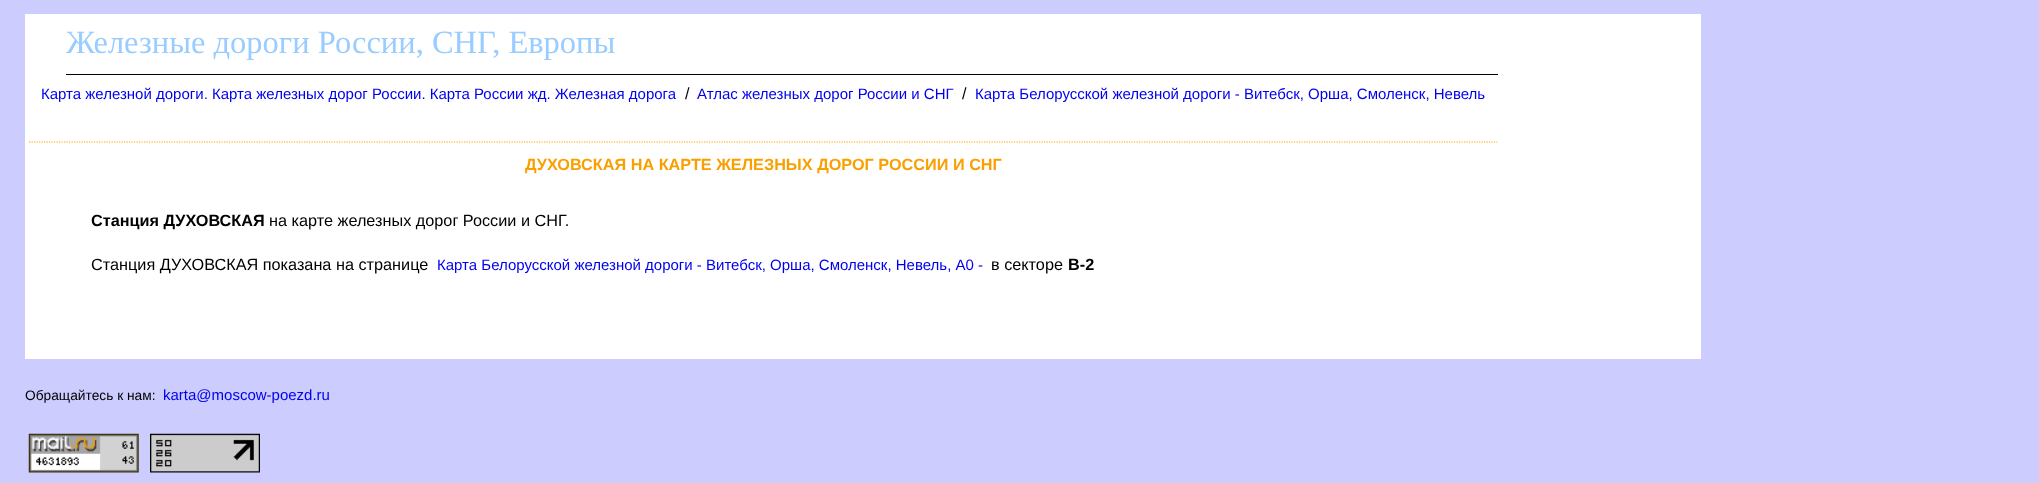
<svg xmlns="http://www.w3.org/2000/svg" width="2039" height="483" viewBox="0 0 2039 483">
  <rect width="100%" height="100%" fill="#ccccff"/>
  <rect x="25" y="14" width="1676" height="345" fill="#ffffff"/>
  <rect x="66" y="74" width="1432" height="1" fill="#000000"/>
  <text x="66" y="53" font-family="Liberation Serif" font-size="32.5" fill="#99ccff">Железные дороги России, СНГ, Европы</text>
  <text x="41" y="99" font-family="Liberation Sans" font-size="15" fill="#0000ee">Карта железной дороги. Карта железных дорог России. Карта России жд. Железная дорога</text>
  <text x="685" y="99" font-family="Liberation Sans" font-size="16.25" fill="#000000">/</text>
  <text x="697" y="99" font-family="Liberation Sans" font-size="15" fill="#0000ee">Атлас железных дорог России и СНГ</text>
  <text x="962" y="99" font-family="Liberation Sans" font-size="16.25" fill="#000000">/</text>
  <text x="975" y="99" font-family="Liberation Sans" font-size="15" fill="#0000ee">Карта Белорусской железной дороги - Витебск, Орша, Смоленск, Невель</text>
  <path d="M29 142H1497.5" fill="none" stroke="#ffa500" stroke-width="1.2" stroke-dasharray="1.25 1.25"/>
  <text x="525" y="170" font-family="Liberation Sans" font-size="16.25" font-weight="bold" fill="#f9a000">ДУХОВСКАЯ НА КАРТЕ ЖЕЛЕЗНЫХ ДОРОГ РОССИИ И СНГ</text>
  <text x="91" y="226" font-family="Liberation Sans" font-size="16.25" font-weight="bold" fill="#000000">Станция ДУХОВСКАЯ</text>
  <text x="269" y="226" font-family="Liberation Sans" font-size="16.25" fill="#000000">на карте железных дорог России и СНГ.</text>
  <text x="91" y="270" font-family="Liberation Sans" font-size="16.25" fill="#000000">Станция ДУХОВСКАЯ показана на странице</text>
  <text x="437" y="270" font-family="Liberation Sans" font-size="15" fill="#0000ee">Карта Белорусской железной дороги - Витебск, Орша, Смоленск, Невель, A0 -</text>
  <text x="991" y="270" font-family="Liberation Sans" font-size="16.25" fill="#000000">в секторе</text>
  <text x="1068" y="270" font-family="Liberation Sans" font-size="16.25" font-weight="bold" fill="#000000">В-2</text>
  <text x="25" y="400" font-family="Liberation Sans" font-size="13.75" fill="#000000">Обращайтесь к нам:</text>
  <text x="163" y="400" font-family="Liberation Sans" font-size="15" fill="#0000ee">karta@moscow-poezd.ru</text>
  <image x="28" y="433" width="111" height="40" href="img1.png"/>
  <image x="150" y="433" width="110" height="40" href="img2.png"/>
</svg>
